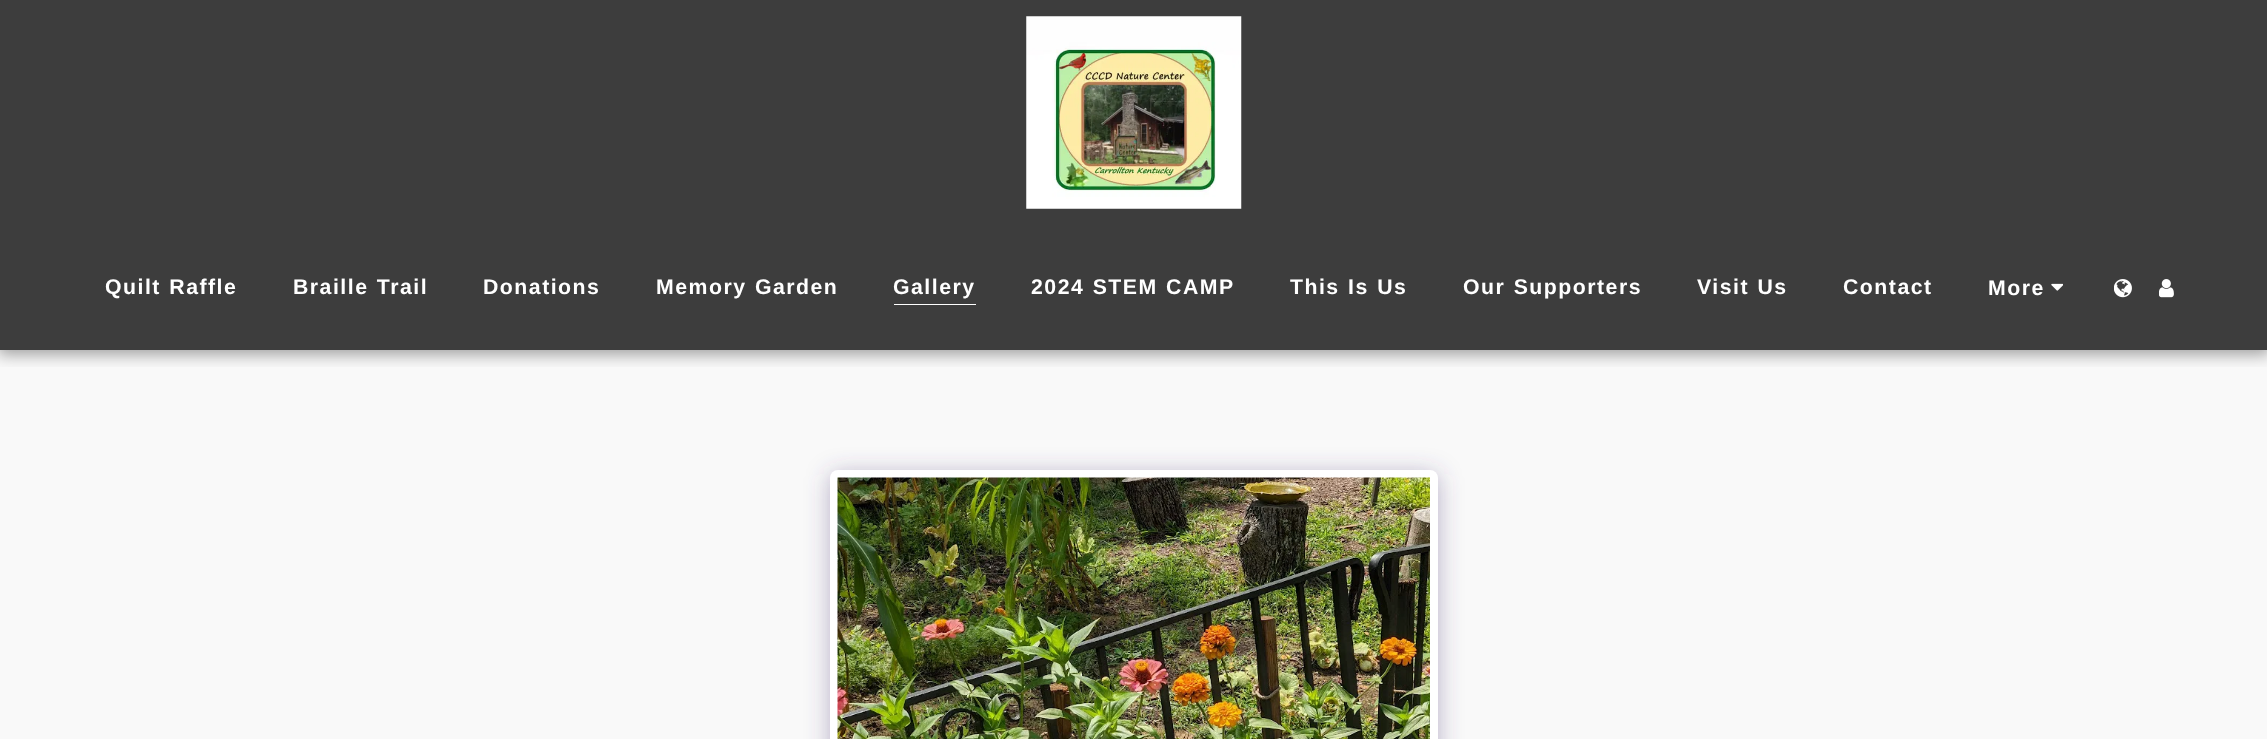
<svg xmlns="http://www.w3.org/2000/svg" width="2267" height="739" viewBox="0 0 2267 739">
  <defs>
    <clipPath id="clip1"><rect x="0" y="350" width="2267" height="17"/></clipPath>
    <filter id="blur1" x="-50%" y="-200%" width="200%" height="500%"><feGaussianBlur stdDeviation="7.5"/></filter>
    <filter id="blur2" x="-50%" y="-200%" width="200%" height="500%"><feGaussianBlur stdDeviation="12.5"/></filter>
  </defs>
  <rect width="100%" height="100%" fill="#3d3d3d"/>
  <rect x="0" y="350" width="2267" height="389" fill="#f9f9f9"/>
  <g clip-path="url(#clip1)">
    <rect x="-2" y="0" width="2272" height="355" fill="#000000" fill-opacity="0.35" filter="url(#blur1)"/>
  </g>
  <image x="1026" y="16" width="216" height="193" href="img1.png"/>
  <text x="105" y="294" word-spacing="1" font-family="Liberation Sans" font-size="21.25" font-weight="bold" letter-spacing="1.5" fill="#ffffff">Quilt Raffle</text>
  <text x="293" y="294" word-spacing="1" font-family="Liberation Sans" font-size="21.25" font-weight="bold" letter-spacing="1.5" fill="#ffffff">Braille Trail</text>
  <text x="483" y="294" font-family="Liberation Sans" font-size="21.25" font-weight="bold" letter-spacing="1.5" fill="#ffffff">Donations</text>
  <text x="656" y="294" word-spacing="1" font-family="Liberation Sans" font-size="21.25" font-weight="bold" letter-spacing="1.5" fill="#ffffff">Memory Garden</text>
  <text x="893" y="294" font-family="Liberation Sans" font-size="21.25" font-weight="bold" letter-spacing="1.5" fill="#ffffff">Gallery</text>
  <rect x="894" y="304" width="82" height="1" fill="#ffffff"/>
  <text x="1031" y="294" word-spacing="1" font-family="Liberation Sans" font-size="21.25" font-weight="bold" letter-spacing="1.5" fill="#ffffff">2024 STEM CAMP</text>
  <text x="1290" y="294" word-spacing="1" font-family="Liberation Sans" font-size="21.25" font-weight="bold" letter-spacing="1.5" fill="#ffffff">This Is Us</text>
  <text x="1463" y="294" word-spacing="1" font-family="Liberation Sans" font-size="21.25" font-weight="bold" letter-spacing="1.5" fill="#ffffff">Our Supporters</text>
  <text x="1697" y="294" word-spacing="1" font-family="Liberation Sans" font-size="21.25" font-weight="bold" letter-spacing="1.5" fill="#ffffff">Visit Us</text>
  <text x="1843" y="294" font-family="Liberation Sans" font-size="21.25" font-weight="bold" letter-spacing="1.5" fill="#ffffff">Contact</text>
  <text x="1988" y="295" font-family="Liberation Sans" font-size="21.25" font-weight="bold" letter-spacing="1.5" fill="#ffffff">More</text>
  <image x="2051" y="283" width="12" height="8" href="img2.png"/>
  <image x="2114" y="279" width="18" height="19" href="img3.png"/>
  <image x="2159" y="279" width="15" height="19" href="img4.png"/>
  <rect x="830" y="474" width="608" height="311" rx="8" fill="#4d3f7a" fill-opacity="0.4" filter="url(#blur2)"/>
  <rect x="830" y="470" width="608" height="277" rx="8" fill="#ffffff"/>
  <image x="837" y="477" width="593" height="262" href="img5.png"/>
</svg>
